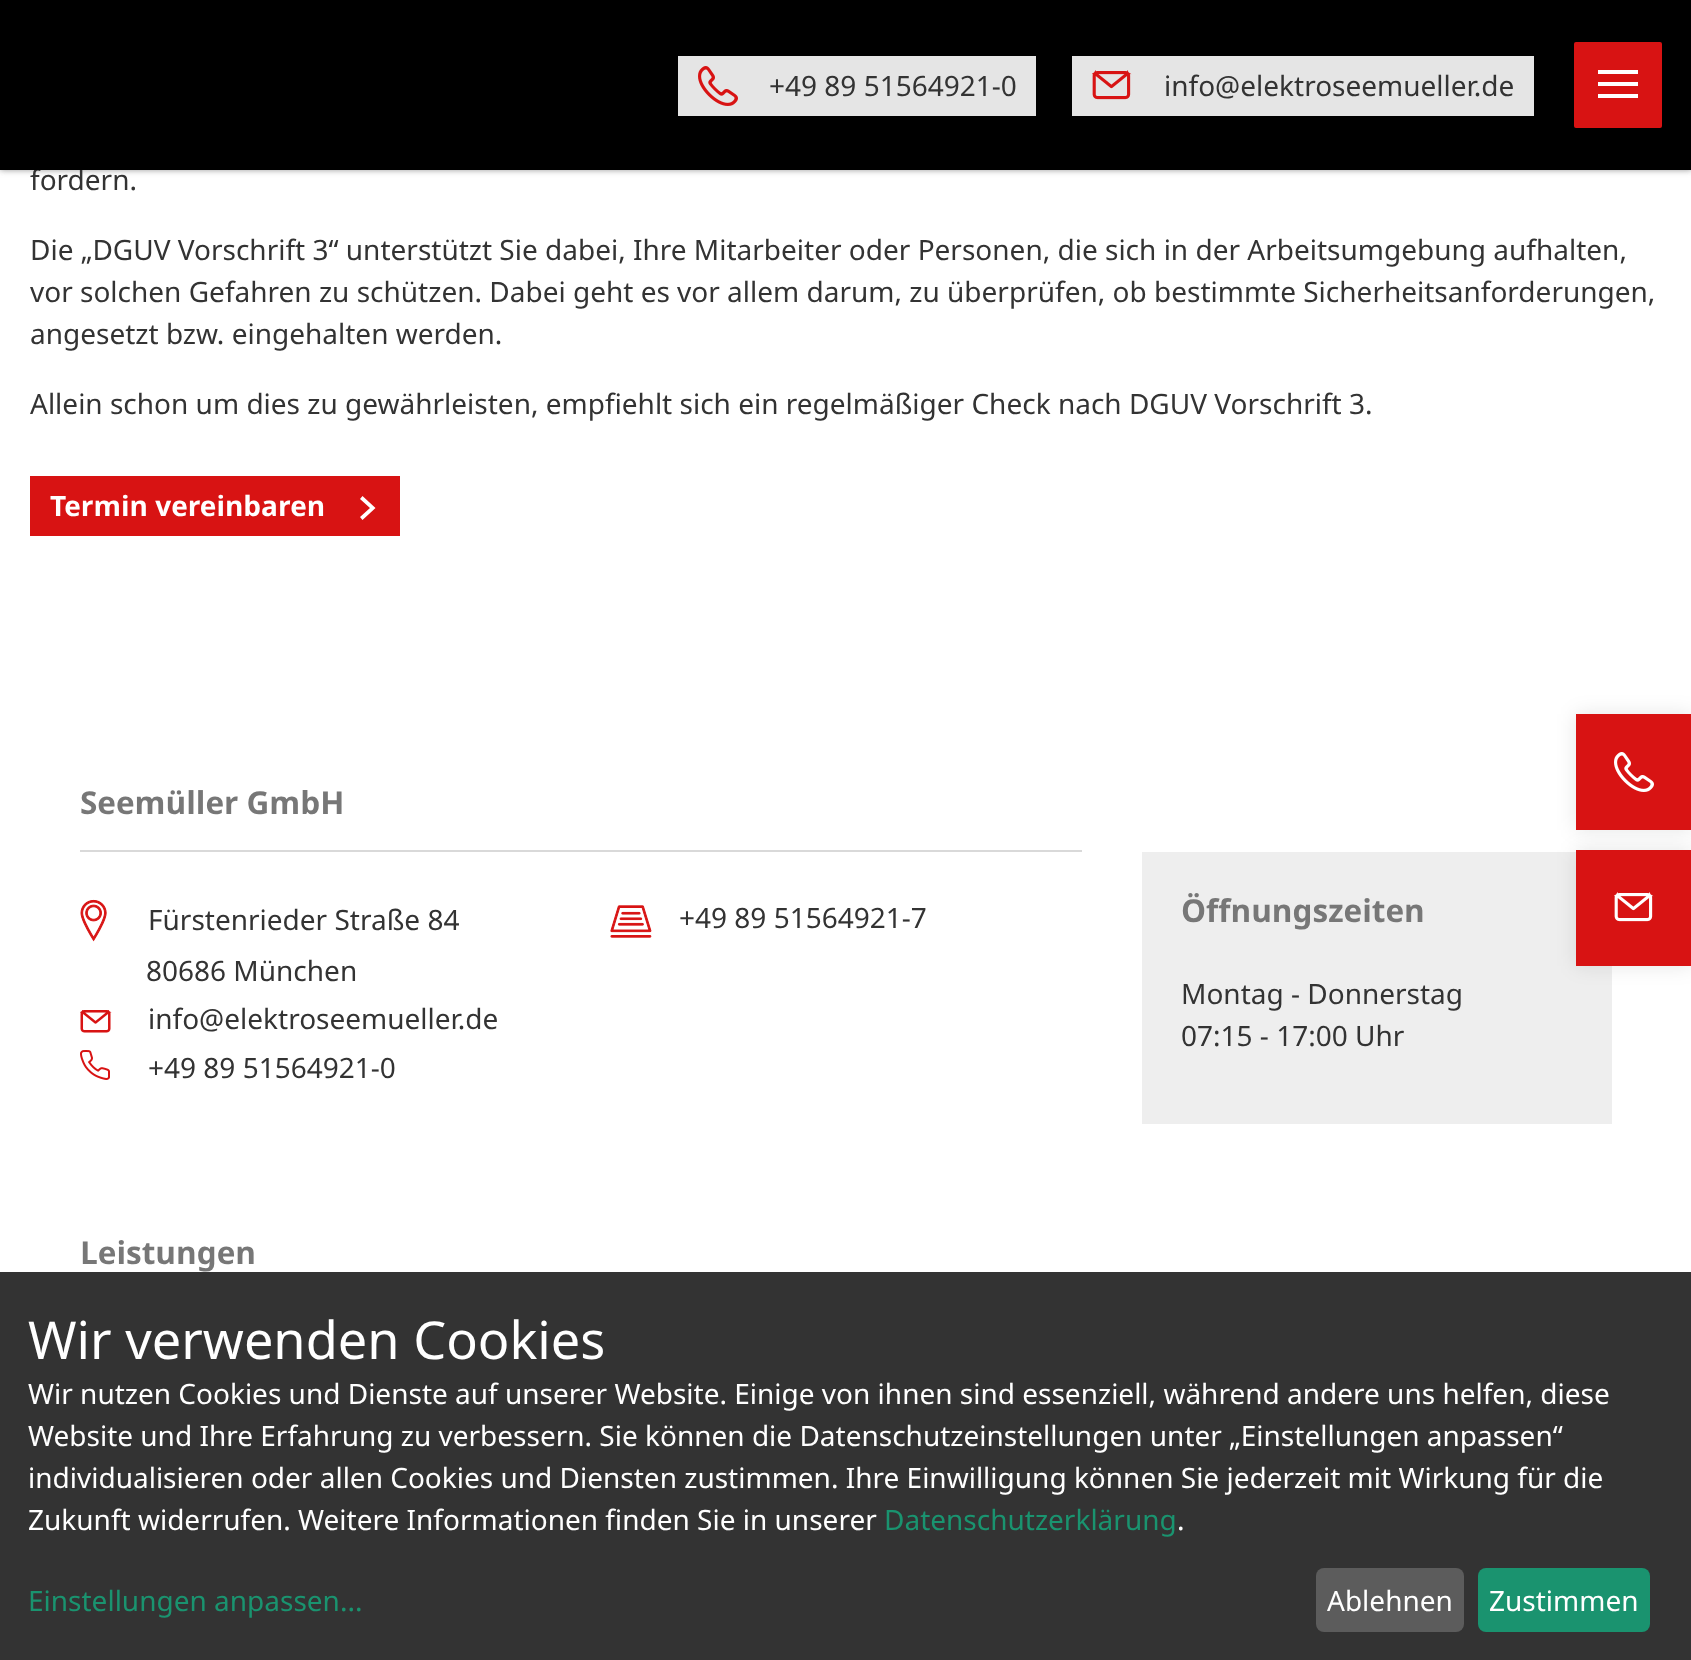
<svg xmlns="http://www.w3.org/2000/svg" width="1691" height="1660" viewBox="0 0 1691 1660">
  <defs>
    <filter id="blur1" x="-50%" y="-200%" width="200%" height="500%"><feGaussianBlur stdDeviation="3"/></filter>
    <filter id="blur2" x="-50%" y="-200%" width="200%" height="500%"><feGaussianBlur stdDeviation="10"/></filter>
  </defs>
  <rect width="100%" height="100%" fill="#ffffff"/>
  <rect x="0" y="0" width="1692" height="170" fill="#999999" filter="url(#blur1)"/>
  <text x="30" y="190" font-family="Noto Sans" font-size="28" fill="#333333">fordern.</text>
  <rect x="0" y="0" width="1691" height="170" fill="#000000"/>
  <rect x="678" y="56" width="358" height="60" fill="#e5e5e5"/>
  <image x="698" y="66" width="40" height="40" href="img1.png"/>
  <text x="769" y="96" font-family="Noto Sans" font-size="28" fill="#333333">+49 89 51564921-0</text>
  <rect x="1072" y="56" width="462" height="60" fill="#e5e5e5"/>
  <image x="1092" y="70" width="40" height="30" href="img2.png"/>
  <text x="1164" y="96" font-family="Noto Sans" font-size="28" fill="#333333">info@elektroseemueller.de</text>
  <rect x="1574" y="42" width="88" height="86" rx="2" fill="#d81313"/>
  <rect x="1598" y="70" width="40" height="4" fill="#ffffff"/>
  <rect x="1598" y="82" width="40" height="4" fill="#ffffff"/>
  <rect x="1598" y="94" width="40" height="4" fill="#ffffff"/>
  <text x="30" y="260" font-family="Noto Sans" font-size="28" fill="#333333">Die „DGUV Vorschrift 3“ unterstützt Sie dabei, Ihre Mitarbeiter oder Personen, die sich in der Arbeitsumgebung aufhalten,</text>
  <text x="30" y="302" font-family="Noto Sans" font-size="28" fill="#333333">vor solchen Gefahren zu schützen. Dabei geht es vor allem darum, zu überprüfen, ob bestimmte Sicherheitsanforderungen,</text>
  <text x="30" y="344" font-family="Noto Sans" font-size="28" fill="#333333">angesetzt bzw. eingehalten werden.</text>
  <text x="30" y="414" font-family="Noto Sans" font-size="28" fill="#333333">Allein schon um dies zu gewährleisten, empfiehlt sich ein regelmäßiger Check nach DGUV Vorschrift 3.</text>
  <rect x="30" y="476" width="370" height="60" fill="#d81313"/>
  <text x="50" y="516" font-family="Noto Sans" font-size="28" font-weight="bold" fill="#ffffff">Termin vereinbaren</text>
  <path d="M370 508L360 499L362.5 496L375.5 508L362.5 520L360 517Z" fill="#ffffff" fill-rule="evenodd"/>
  <rect x="1142" y="852" width="470" height="272" fill="#eeeeee"/>
  <rect x="1576" y="714" width="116" height="116" fill="#000000" fill-opacity="0.1" filter="url(#blur2)"/>
  <rect x="1576" y="714" width="115" height="116" fill="#d81313"/>
  <image x="1614" y="752" width="40" height="40" href="img3.png"/>
  <rect x="1576" y="850" width="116" height="116" fill="#000000" fill-opacity="0.1" filter="url(#blur2)"/>
  <rect x="1576" y="850" width="115" height="116" fill="#d81313"/>
  <image x="1614" y="892" width="40" height="30" href="img4.png"/>
  <rect x="80" y="850" width="1002" height="2" fill="#d9d9d9"/>
  <text x="80" y="814" font-family="Noto Sans" font-size="31.5" font-weight="bold" fill="#777777">Seemüller GmbH</text>
  <image x="80" y="899" width="27" height="43" href="img5.png"/>
  <text x="148" y="930" font-family="Noto Sans" font-size="28" fill="#333333">Fürstenrieder Straße 84</text>
  <text x="146" y="981" font-family="Noto Sans" font-size="28" fill="#333333">80686 München</text>
  <image x="80" y="1010" width="32" height="23" href="img6.png"/>
  <text x="148" y="1029" font-family="Noto Sans" font-size="28" fill="#333333">info@elektroseemueller.de</text>
  <image x="80" y="1050" width="30" height="30" href="img7.png"/>
  <text x="148" y="1078" font-family="Noto Sans" font-size="28" fill="#333333">+49 89 51564921-0</text>
  <image x="610" y="905" width="42" height="33" href="img8.png"/>
  <text x="679" y="928" font-family="Noto Sans" font-size="28" fill="#333333">+49 89 51564921-7</text>
  <text x="80" y="1264" font-family="Noto Sans" font-size="31.5" font-weight="bold" fill="#777777">Leistungen</text>
  <text x="1181" y="922" font-family="Noto Sans" font-size="31.5" font-weight="bold" fill="#777777">Öffnungszeiten</text>
  <text x="1181" y="1004" font-family="Noto Sans" font-size="28" fill="#333333">Montag - Donnerstag</text>
  <text x="1181" y="1046" font-family="Noto Sans" font-size="28" fill="#333333">07:15 - 17:00 Uhr</text>
  <rect x="0" y="1272" width="1691" height="388" fill="#333333"/>
  <text x="28" y="1359" font-family="Noto Sans" font-size="52.25" fill="#ffffff">Wir verwenden Cookies</text>
  <text x="28" y="1404" font-family="Noto Sans" font-size="28" fill="#ffffff">Wir nutzen Cookies und Dienste auf unserer Website. Einige von ihnen sind essenziell, während andere uns helfen, diese</text>
  <text x="28" y="1446" font-family="Noto Sans" font-size="28" fill="#ffffff">Website und Ihre Erfahrung zu verbessern. Sie können die Datenschutzeinstellungen unter „Einstellungen anpassen“</text>
  <text x="28" y="1488" font-family="Noto Sans" font-size="28" fill="#ffffff">individualisieren oder allen Cookies und Diensten zustimmen. Ihre Einwilligung können Sie jederzeit mit Wirkung für die</text>
  <text x="28" y="1530" font-family="Noto Sans" font-size="28" fill="#ffffff">Zukunft widerrufen. Weitere Informationen finden Sie in unserer</text>
  <text x="884" y="1530" font-family="Noto Sans" font-size="28" fill="#1a936f">Datenschutzerklärung</text>
  <text x="1177" y="1530" font-family="Noto Sans" font-size="28" fill="#ffffff">.</text>
  <text x="28" y="1611" font-family="Noto Sans" font-size="28" fill="#1a936f">Einstellungen anpassen...</text>
  <rect x="1316" y="1568" width="148" height="64" rx="8" fill="#5c5c5c"/>
  <text x="1327" y="1611" font-family="Noto Sans" font-size="28" fill="#ffffff">Ablehnen</text>
  <rect x="1478" y="1568" width="172" height="64" rx="8" fill="#1a936f"/>
  <text x="1489" y="1611" font-family="Noto Sans" font-size="28" fill="#ffffff">Zustimmen</text>
</svg>
